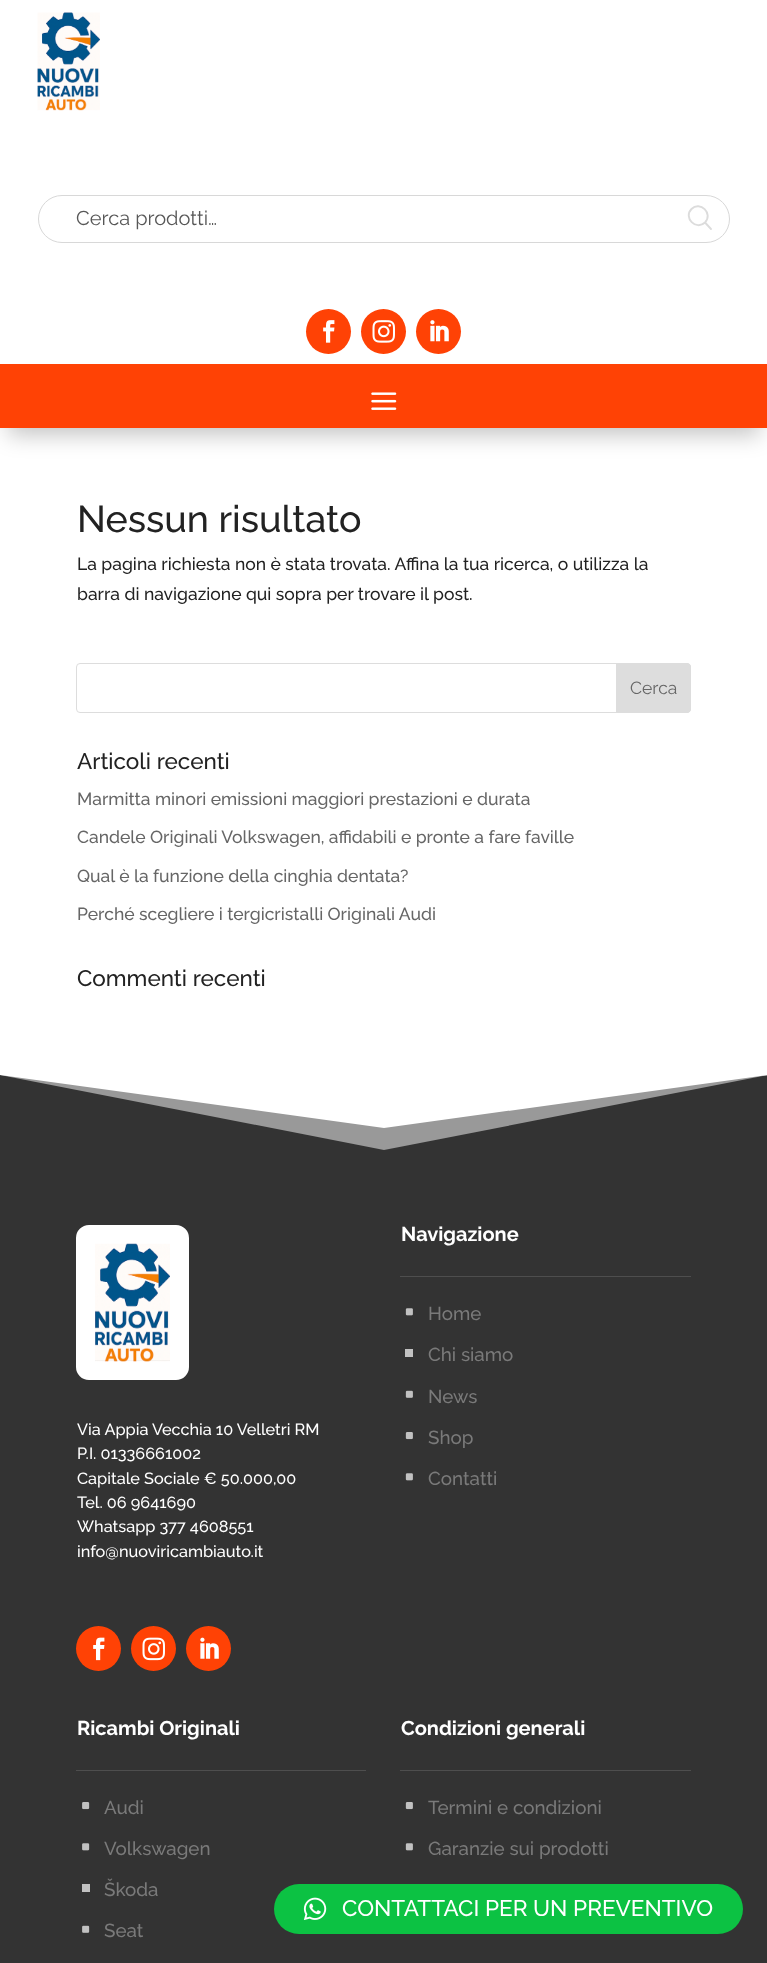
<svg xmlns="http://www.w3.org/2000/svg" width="767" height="1963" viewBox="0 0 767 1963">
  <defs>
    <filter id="blur1" x="-50%" y="-200%" width="200%" height="500%"><feGaussianBlur stdDeviation="11"/></filter>
  </defs>
  <rect width="100%" height="100%" fill="#ffffff"/>
  <image x="37" y="12" width="63" height="99" href="img1.png"/>
  <rect x="38.5" y="195.5" width="691" height="47" rx="23.5" fill="none" stroke="#d8d8d8"/>
  <text x="76" y="225" font-family="Raleway" font-size="20" fill="#575757">Cerca prodotti…</text>
  <path d="M711 229L705 222.5M705 222.5C713.5 213.5 700 200.5 691.5 209C683 217.5 696 231 705 222.5Z" fill="none" stroke="#dcdcdc" stroke-width="1.9" stroke-linecap="round" stroke-linejoin="round"/>
  <circle cx="328.5" cy="331.5" r="22.5" fill="#ff4205"/>
  <image x="323" y="320" width="12" height="23" href="img2.png"/>
  <circle cx="383.5" cy="331.5" r="22.5" fill="#ff4205"/>
  <image x="372" y="320" width="23" height="23" href="img3.png"/>
  <circle cx="438.5" cy="331.5" r="22.5" fill="#ff4205"/>
  <image x="430" y="320" width="19" height="22" href="img4.png"/>
  <rect x="8" y="386" width="752" height="49" fill="#000000" fill-opacity="0.23" filter="url(#blur1)"/>
  <rect x="0" y="364" width="767" height="64" fill="#ff4205"/>
  <image x="371" y="392" width="26" height="18" href="img5.png"/>
  <text x="77" y="532" font-family="Raleway" font-size="37.5" font-weight="500" fill="#222222">Nessun risultato</text>
  <text x="77" y="570" font-family="Raleway" font-size="17.5" font-weight="500" fill="#222222">La pagina richiesta non è stata trovata. Affina la tua ricerca, o utilizza la</text>
  <text x="77" y="600" font-family="Raleway" font-size="17.5" font-weight="500" fill="#222222">barra di navigazione qui sopra per trovare il post.</text>
  <rect x="76.5" y="663.5" width="614" height="49" rx="3.5" fill="none" stroke="#dddddd"/>
  <path d="M616.5 663.5H687C689 663.5 690.5 665 690.5 667V709C690.5 711 689 712.5 687 712.5H616.5Z" fill="#dddddd" stroke="#dddddd"/>
  <text x="630" y="694" font-family="Raleway" font-size="17.5" fill="#666666">Cerca</text>
  <text x="77" y="769" font-family="Raleway" font-size="22.5" font-weight="500" fill="#222222">Articoli recenti</text>
  <text x="77" y="805" font-family="Raleway" font-size="17.5" font-weight="500" fill="#666666">Marmitta minori emissioni maggiori prestazioni e durata</text>
  <text x="77" y="843" font-family="Raleway" font-size="17.5" font-weight="500" fill="#666666">Candele Originali Volkswagen, affidabili e pronte a fare faville</text>
  <text x="77" y="882" font-family="Raleway" font-size="17.5" font-weight="500" fill="#666666">Qual è la funzione della cinghia dentata?</text>
  <text x="77" y="920" font-family="Raleway" font-size="17.5" font-weight="500" fill="#666666">Perché scegliere i tergicristalli Originali Audi</text>
  <text x="77" y="986" font-family="Raleway" font-size="22.5" font-weight="500" fill="#222222">Commenti recenti</text>
  <rect x="0" y="1075" width="767" height="888" fill="#333333"/>
  <path d="M384 1150L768 1075H0Z" fill="#999999"/>
  <path d="M384 1128L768 1075H0Z" fill="#ffffff"/>
  <rect x="85.5" y="1234.5" width="94" height="136" rx="3.5" fill="none" stroke="#ffffff" stroke-width="19"/>
  <image x="95" y="1243" width="75" height="119" href="img6.png"/>
  <text x="77" y="1435" font-family="Raleway" font-size="16.25" font-weight="500" fill="#ffffff">Via Appia Vecchia 10 Velletri RM</text>
  <text x="77" y="1459" font-family="Raleway" font-size="16.25" font-weight="500" fill="#ffffff">P.I. 01336661002</text>
  <text x="77" y="1484" font-family="Raleway" font-size="16.25" font-weight="500" fill="#ffffff">Capitale Sociale € 50.000,00</text>
  <text x="77" y="1508" font-family="Raleway" font-size="16.25" font-weight="500" fill="#ffffff">Tel. 06 9641690</text>
  <text x="77" y="1532" font-family="Raleway" font-size="16.25" font-weight="500" fill="#ffffff">Whatsapp 377 4608551</text>
  <text x="77" y="1557" font-family="Raleway" font-size="16.25" font-weight="500" fill="#ffffff">info@nuoviricambiauto.it</text>
  <circle cx="98.5" cy="1648.5" r="22.5" fill="#ff4205"/>
  <image x="93" y="1637" width="12" height="24" href="img7.png"/>
  <circle cx="153.5" cy="1648.5" r="22.5" fill="#ff4205"/>
  <image x="142" y="1637" width="23" height="24" href="img8.png"/>
  <circle cx="208.5" cy="1648.5" r="22.5" fill="#ff4205"/>
  <image x="200" y="1637" width="19" height="22" href="img9.png"/>
  <rect x="400" y="1276" width="291" height="1" fill="#4e4e4e"/>
  <text x="401" y="1241" font-family="Raleway" font-size="20" font-weight="bold" fill="#ffffff">Navigazione</text>
  <image x="405" y="1308" width="8" height="8" href="img10.png"/>
  <text x="428" y="1320" font-family="Raleway" font-size="18.75" font-weight="500" fill="#7a7a7a">Home</text>
  <rect x="405" y="1349" width="8" height="8" fill="#c2c2c2"/>
  <text x="428" y="1361" font-family="Raleway" font-size="18.75" font-weight="500" fill="#7a7a7a">Chi siamo</text>
  <image x="405" y="1390" width="8" height="8" href="img11.png"/>
  <text x="428" y="1403" font-family="Raleway" font-size="18.75" font-weight="500" fill="#7a7a7a">News</text>
  <image x="405" y="1432" width="8" height="8" href="img12.png"/>
  <text x="428" y="1444" font-family="Raleway" font-size="18.75" font-weight="500" fill="#7a7a7a">Shop</text>
  <image x="405" y="1473" width="8" height="8" href="img10.png"/>
  <text x="428" y="1485" font-family="Raleway" font-size="18.75" font-weight="500" fill="#7a7a7a">Contatti</text>
  <rect x="76" y="1770" width="290" height="1" fill="#4e4e4e"/>
  <text x="77" y="1735" font-family="Raleway" font-size="20" font-weight="bold" fill="#ffffff">Ricambi Originali</text>
  <image x="82" y="1802" width="8" height="8" href="img13.png"/>
  <text x="104" y="1814" font-family="Raleway" font-size="18.75" font-weight="500" fill="#7a7a7a">Audi</text>
  <image x="82" y="1843" width="8" height="8" href="img14.png"/>
  <text x="104" y="1855" font-family="Raleway" font-size="18.75" font-weight="500" fill="#7a7a7a">Volkswagen</text>
  <rect x="82" y="1884" width="8" height="8" fill="#c2c2c2"/>
  <text x="104" y="1896" font-family="Raleway" font-size="18.75" font-weight="500" fill="#7a7a7a">Škoda</text>
  <image x="82" y="1925" width="8" height="8" href="img15.png"/>
  <text x="104" y="1937" font-family="Raleway" font-size="18.75" font-weight="500" fill="#7a7a7a">Seat</text>
  <rect x="400" y="1770" width="291" height="1" fill="#4e4e4e"/>
  <text x="401" y="1735" font-family="Raleway" font-size="20" font-weight="bold" fill="#ffffff">Condizioni generali</text>
  <image x="405" y="1802" width="8" height="8" href="img12.png"/>
  <text x="428" y="1814" font-family="Raleway" font-size="18.75" font-weight="500" fill="#7a7a7a">Termini e condizioni</text>
  <image x="405" y="1843" width="8" height="8" href="img10.png"/>
  <text x="428" y="1855" font-family="Raleway" font-size="18.75" font-weight="500" fill="#7a7a7a">Garanzie sui prodotti</text>
  <rect x="274" y="1884" width="469" height="50" rx="25" fill="#0cc243"/>
  <image x="303" y="1897" width="24" height="23" href="img16.png"/>
  <text x="342" y="1916" font-family="Raleway" font-size="22.5" font-weight="500" fill="#ffffff">CONTATTACI PER UN PREVENTIVO</text>
</svg>
